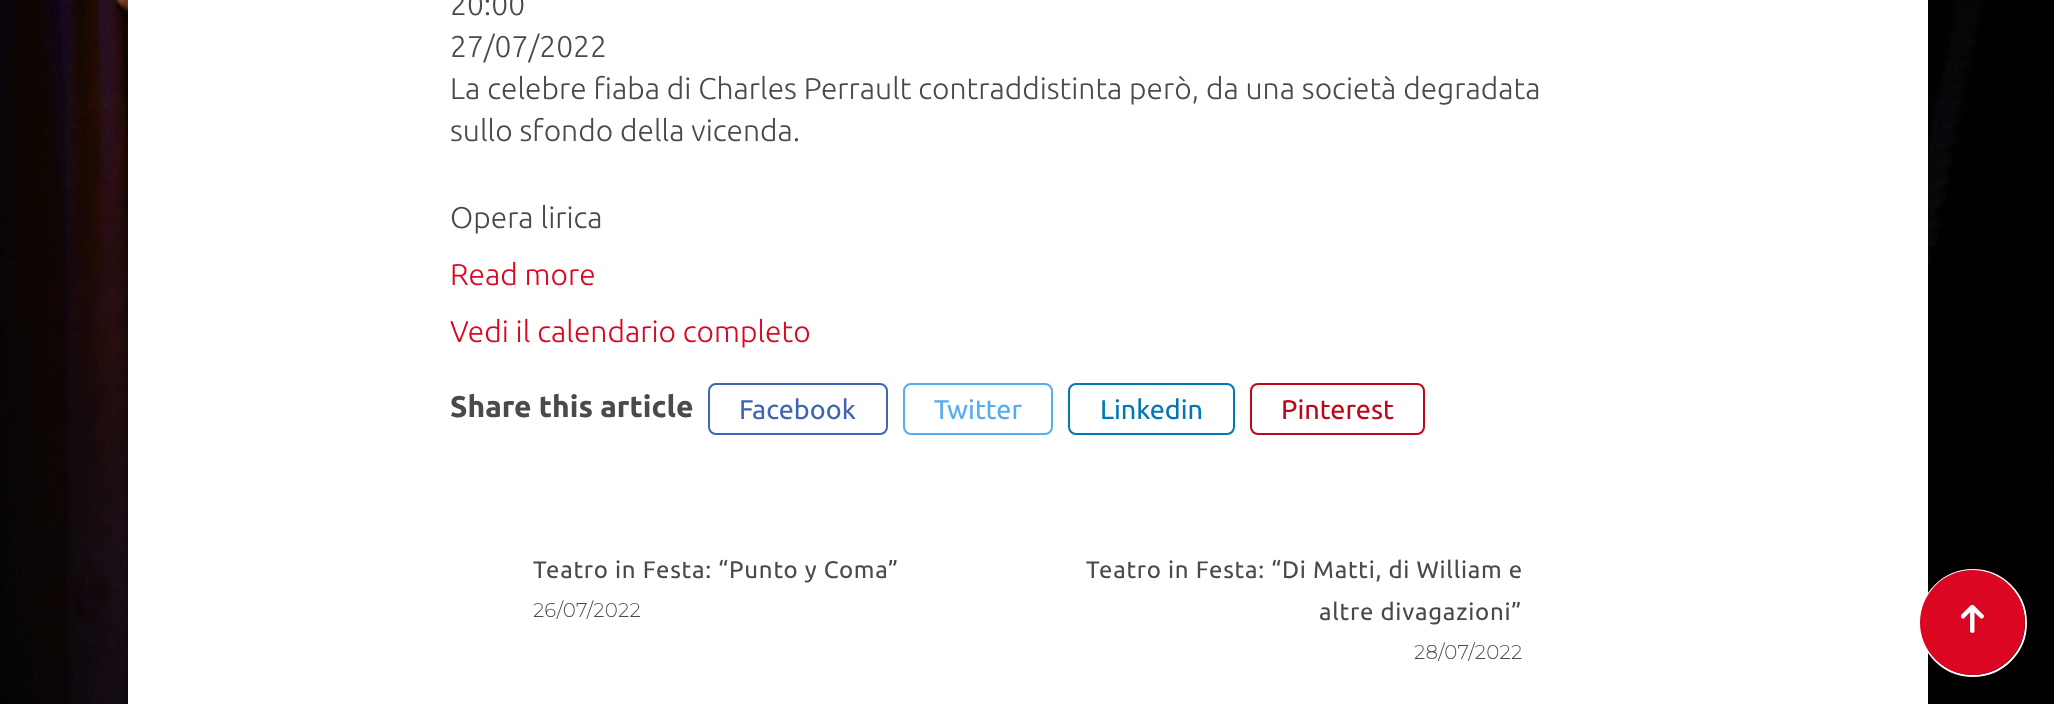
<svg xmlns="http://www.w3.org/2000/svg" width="2054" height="704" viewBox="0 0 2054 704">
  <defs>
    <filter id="blur1" x="-50%" y="-200%" width="200%" height="500%"><feGaussianBlur stdDeviation="7.5"/></filter>
  </defs>
  <rect width="100%" height="100%" fill="#ffffff"/>
  <image x="0" y="0" width="2054" height="704" href="img1.png"/>
  <rect x="128" y="-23" width="1800" height="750" fill="#000000" fill-opacity="0.3" filter="url(#blur1)"/>
  <rect x="128" y="0" width="1800" height="704" fill="#ffffff"/>
  <text x="450" y="15" font-family="Ubuntu" font-size="30" font-weight="300" fill="#4a4a4a">20:00</text>
  <text x="450" y="57" font-family="Ubuntu" font-size="30" font-weight="300" fill="#4a4a4a">27/07/2022</text>
  <text x="450" y="99" font-family="Ubuntu" font-size="30" font-weight="300" fill="#4a4a4a">La celebre fiaba di Charles Perrault contraddistinta però, da una società degradata</text>
  <text x="450" y="141" font-family="Ubuntu" font-size="30" font-weight="300" fill="#4a4a4a">sullo sfondo della vicenda.</text>
  <text x="450" y="228" font-family="Ubuntu" font-size="30" font-weight="300" fill="#4a4a4a">Opera lirica</text>
  <text x="450" y="285" font-family="Ubuntu" font-size="30" font-weight="300" fill="#db0622">Read more</text>
  <text x="450" y="342" font-family="Ubuntu" font-size="30" font-weight="300" fill="#db0622">Vedi il calendario completo</text>
  <text x="450" y="417" font-family="Ubuntu" font-size="30" font-weight="bold" fill="#4a4a4a">Share this article</text>
  <rect x="709" y="384" width="178" height="50" rx="7" fill="none" stroke="#4065b4" stroke-width="2"/>
  <text x="739" y="419" font-family="Ubuntu" font-size="27" fill="#4065b4">Facebook</text>
  <rect x="904" y="384" width="148" height="50" rx="7" fill="none" stroke="#55acee" stroke-width="2"/>
  <text x="934" y="419" font-family="Ubuntu" font-size="27" fill="#55acee">Twitter</text>
  <rect x="1069" y="384" width="165" height="50" rx="7" fill="none" stroke="#0077b5" stroke-width="2"/>
  <text x="1100" y="419" font-family="Ubuntu" font-size="27" fill="#0077b5">Linkedin</text>
  <rect x="1251" y="384" width="173" height="50" rx="7" fill="none" stroke="#bd081c" stroke-width="2"/>
  <text x="1281" y="419" font-family="Ubuntu" font-size="27" fill="#bd081c">Pinterest</text>
  <text x="533" y="578" font-family="Ubuntu" font-size="24" letter-spacing="0.75" fill="#4a4a4a">Teatro in Festa: “Punto y Coma”</text>
  <text x="533" y="617" font-family="Montserrat" font-size="19.25" font-weight="bold" letter-spacing="0.75" fill="#4a4a4a">26/07/2022</text>
  <text x="1086" y="578" font-family="Ubuntu" font-size="24" letter-spacing="0.75" fill="#4a4a4a">Teatro in Festa: “Di Matti, di William e</text>
  <text x="1319" y="620" font-family="Ubuntu" font-size="24" letter-spacing="0.75" fill="#4a4a4a">altre divagazioni”</text>
  <text x="1414" y="659" font-family="Montserrat" font-size="19.25" font-weight="bold" letter-spacing="0.75" fill="#4a4a4a">28/07/2022</text>
  <circle cx="1973" cy="623" r="53" fill="none" stroke="#ffffff" stroke-width="2"/>
  <circle cx="1972.5" cy="622.5" r="52.5" fill="#db0622"/>
  <image x="1961" y="605" width="23" height="28" href="img2.png"/>
</svg>
